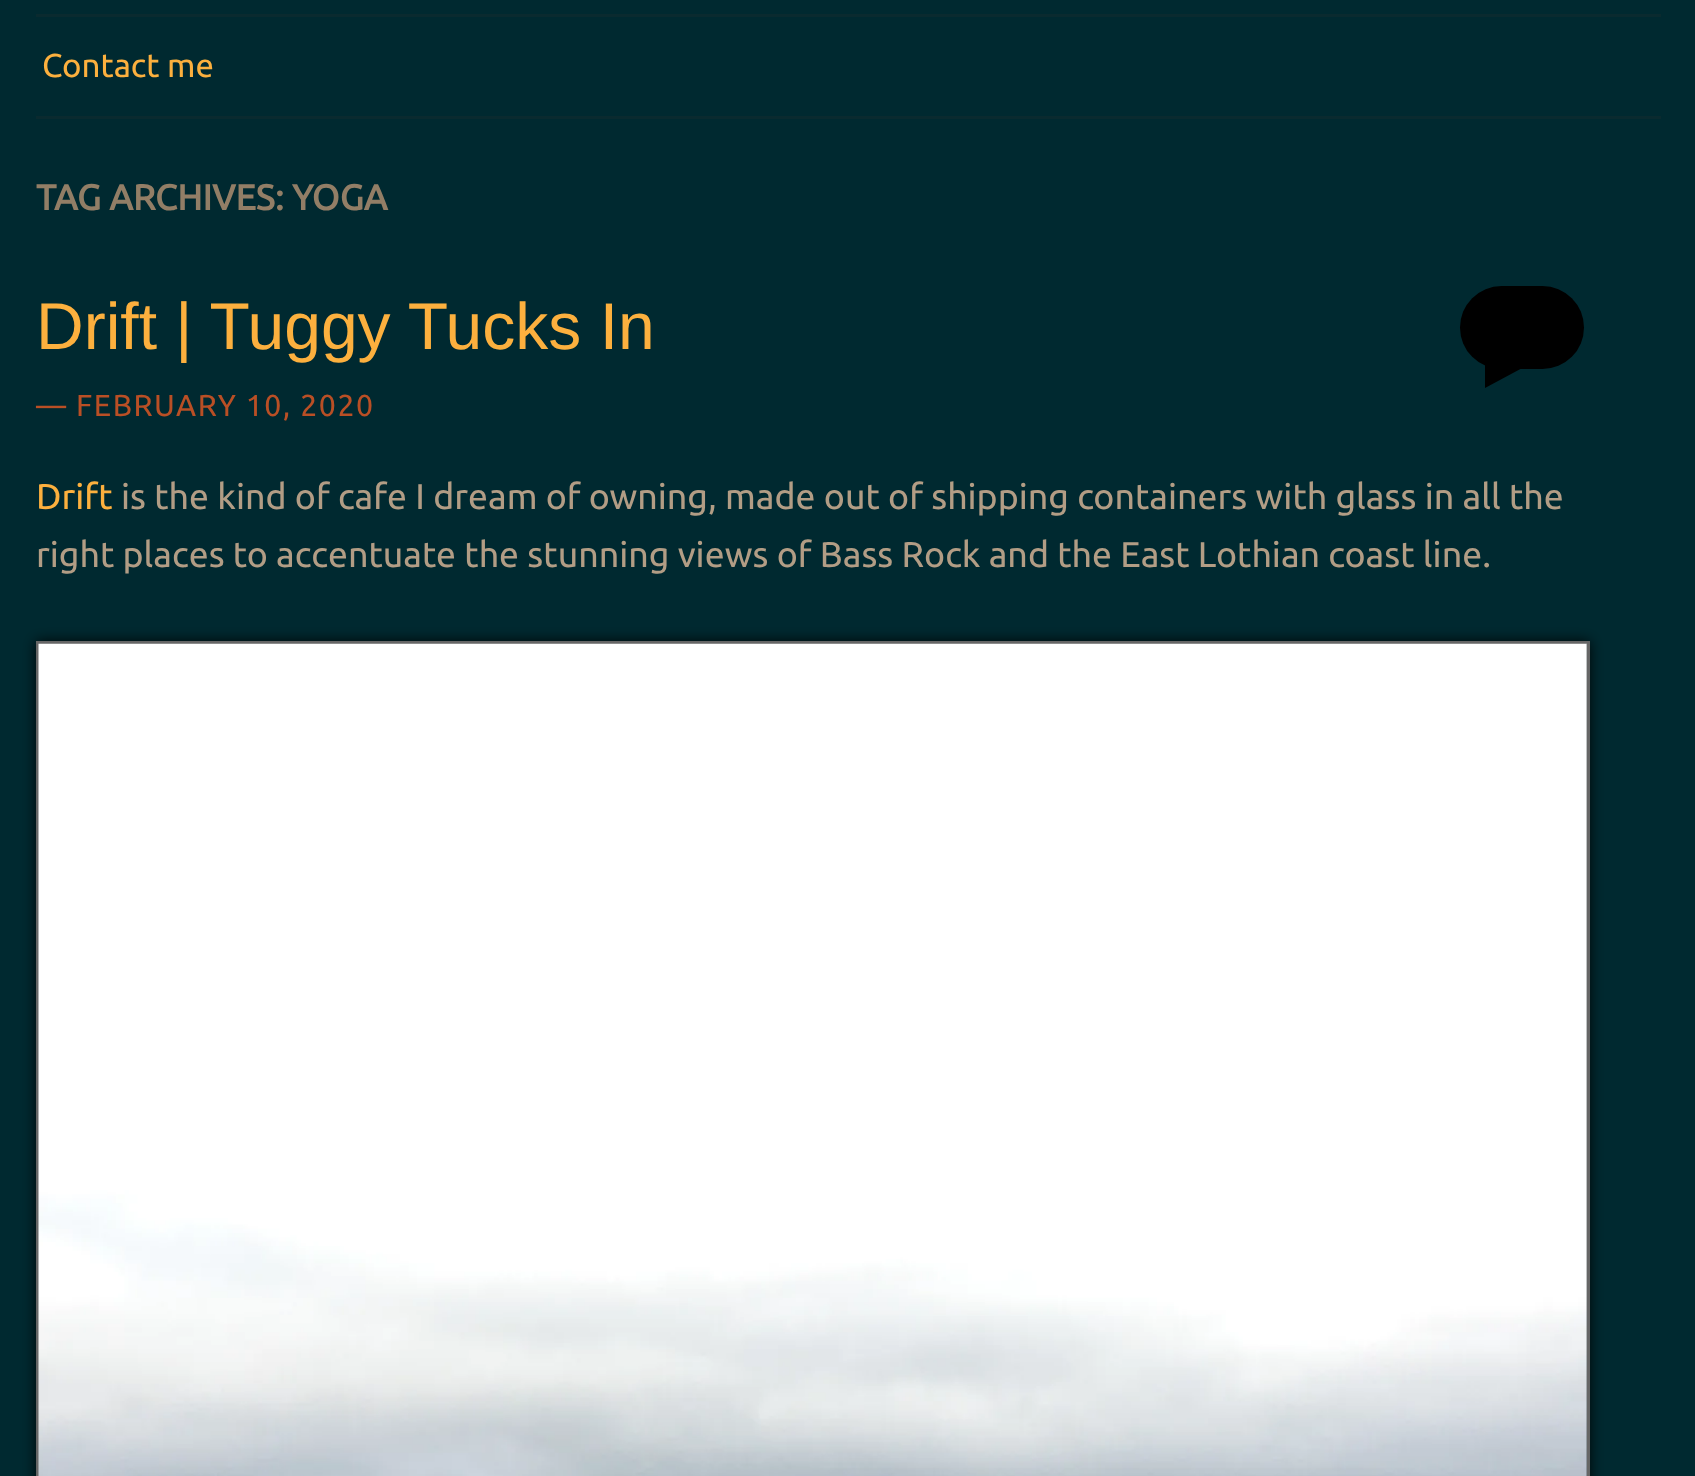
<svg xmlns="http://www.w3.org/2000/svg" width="1695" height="1476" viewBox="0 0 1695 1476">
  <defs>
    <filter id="blur1" x="-50%" y="-200%" width="200%" height="500%"><feGaussianBlur stdDeviation="7"/></filter>
  </defs>
  <rect width="100%" height="100%" fill="#002930"/>
  <rect x="36" y="14" width="1625" height="3" fill="#0a2a2f"/>
  <rect x="36" y="116" width="1625" height="3" fill="#0a2a2f"/>
  <text x="42" y="77" font-family="Ubuntu" font-size="33" fill="#fcb03e">Contact me</text>
  <text x="36" y="210" font-family="Ubuntu" font-size="35.75" font-weight="bold" fill="#927e66">TAG ARCHIVES: YOGA</text>
  <text x="36" y="349" font-family="Liberation Sans" font-size="66" fill="#fcb03e">Drift | Tuggy Tucks In</text>
  <rect x="1460" y="286" width="124" height="83" rx="41.5" fill="#000000"/>
  <path d="M1485 388V360H1537Z" fill="#000000"/>
  <text x="36" y="416" font-family="Ubuntu" font-size="30.25" letter-spacing="1.5" fill="#b94f25">— FEBRUARY 10, 2020</text>
  <text x="36" y="509" font-family="Ubuntu" font-size="35.75" fill="#fcb03e">Drift</text>
  <text x="121" y="509" font-family="Ubuntu" font-size="35.75" fill="#b29d85">is the kind of cafe I dream of owning, made out of shipping containers with glass in all the</text>
  <text x="36" y="567" font-family="Ubuntu" font-size="35.75" fill="#b29d85">right places to accentuate the stunning views of Bass Rock and the East Lothian coast line.</text>
  <rect x="36" y="641" width="1554" height="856" fill="#000000" fill-opacity="0.9" filter="url(#blur1)"/>
  <rect x="37.5" y="642.5" width="1551" height="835" fill="none" stroke="#666666" stroke-width="3"/>
  <image x="38" y="643" width="1549" height="833" href="img1.png"/>
</svg>
